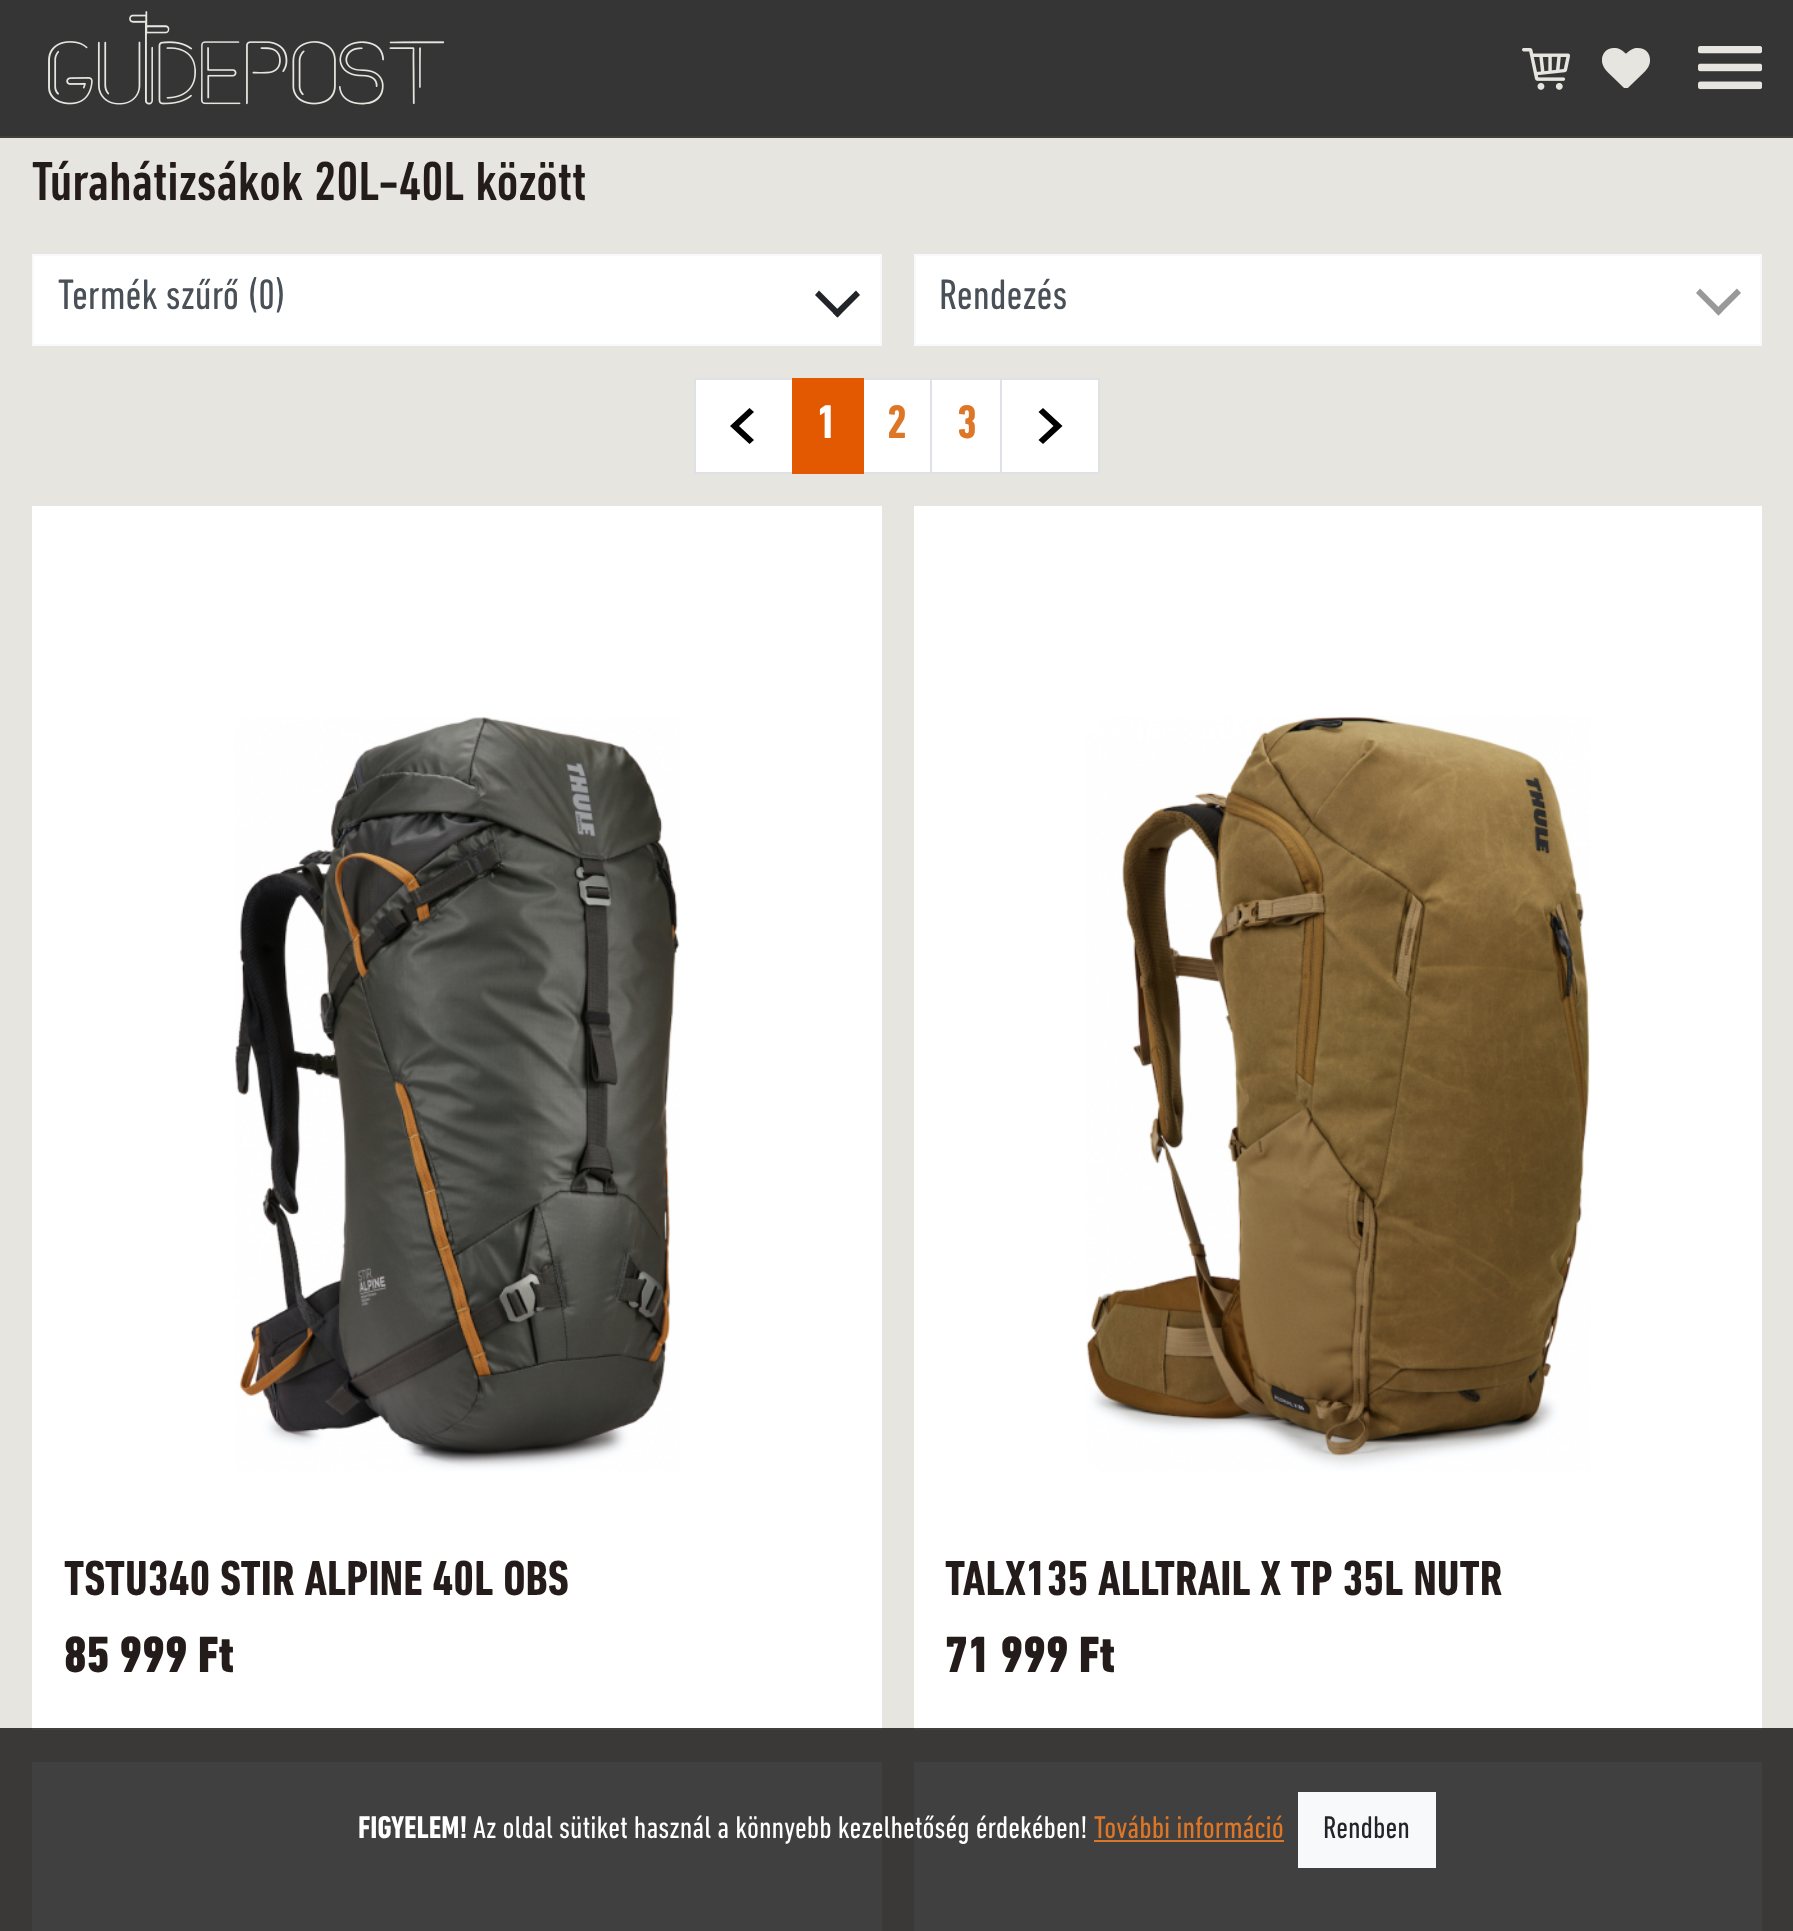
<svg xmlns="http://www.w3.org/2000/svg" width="1793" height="1931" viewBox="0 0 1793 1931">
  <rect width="100%" height="100%" fill="#e6e5df"/>
  <rect x="0" y="1728" width="1793" height="203" fill="#3a3938"/>
  <rect x="0" y="0" width="1793" height="136" fill="#353535"/>
  <image x="48" y="11" width="396" height="94" href="img1.png"/>
  <image x="1522" y="48" width="48" height="42" href="img2.png"/>
  <image x="1602" y="48" width="48" height="40" href="img3.png"/>
  <image x="1698" y="46" width="64" height="44" href="img4.png"/>
  <rect x="0" y="136" width="1793" height="2" fill="#3f3f3f"/>
  <text x="32" y="200" font-family="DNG" font-size="56" font-weight="500" fill="#241c1a">Túrahátizsákok 20L-40L között</text>
  <rect x="33" y="255" width="848" height="90" fill="#ffffff" stroke="#f8f9fa" stroke-width="2"/>
  <text x="58" y="309" font-family="DNG" font-size="43.25" fill="#495057">Termék szűrő (0)</text>
  <path d="M856 290.5L860 295L837.5 317.5L833 313Z" fill="#212529"/>
  <path d="M819 290.5L841.5 313L837.5 317.5L815 295Z" fill="#212529"/>
  <rect x="915" y="255" width="846" height="90" fill="#ffffff" stroke="#f8f9fa" stroke-width="2"/>
  <text x="939" y="309" font-family="DNG" font-size="43.25" fill="#495057">Rendezés</text>
  <path d="M1737 288.5L1741 293L1718.5 315.5L1714 311Z" fill="#999999"/>
  <path d="M1700 288.5L1722.5 311L1718.5 315.5L1696 293Z" fill="#999999"/>
  <rect x="695" y="379" width="98" height="94" fill="#ffffff" stroke="#dee2e6" stroke-width="2"/>
  <path d="M730 426L749.5 444L754 440L739 426L754 412L749.5 408Z" fill="#000000"/>
  <rect x="863" y="379" width="68" height="94" fill="#ffffff" stroke="#dee2e6" stroke-width="2"/>
  <rect x="792" y="378" width="72" height="96" fill="#e35901"/>
  <text x="817" y="438" font-family="DNG" font-size="48" font-weight="bold" fill="#ffffff">1</text>
  <text x="887" y="438" font-family="DNG" font-size="48" font-weight="bold" fill="#dd7727">2</text>
  <rect x="931" y="379" width="70" height="94" fill="#ffffff" stroke="#dee2e6" stroke-width="2"/>
  <text x="957" y="438" font-family="DNG" font-size="48" font-weight="bold" fill="#dd7727">3</text>
  <rect x="1001" y="379" width="98" height="94" fill="#ffffff" stroke="#dee2e6" stroke-width="2"/>
  <path d="M1043 408L1038.5 412L1053.5 426L1038.5 440L1043 444L1062.5 426Z" fill="#000000"/>
  <rect x="32" y="506" width="850" height="1222" fill="#ffffff"/>
  <rect x="32" y="1728" width="850" height="2" fill="#404040"/>
  <image x="235" y="717" width="445" height="754" href="img5.png"/>
  <text x="64" y="1595" font-family="DNG" font-size="50" font-weight="bold" fill="#241c1a">TSTU340 STIR ALPINE 40L OBS</text>
  <text x="64" y="1672" font-family="DNG" font-size="52" font-weight="900" fill="#241c1a">85 999 Ft</text>
  <rect x="914" y="506" width="848" height="1222" fill="#ffffff"/>
  <rect x="914" y="1728" width="848" height="2" fill="#404040"/>
  <image x="1086" y="716" width="504" height="755" href="img6.png"/>
  <text x="945" y="1595" font-family="DNG" font-size="50" font-weight="bold" fill="#241c1a">TALX135 ALLTRAIL X TP 35L NUTR</text>
  <text x="945" y="1672" font-family="DNG" font-size="52" font-weight="900" fill="#241c1a">71 999 Ft</text>
  <rect x="32" y="1762" width="850" height="169" fill="#404040"/>
  <rect x="914" y="1762" width="848" height="169" fill="#404040"/>
  <text x="358" y="1838" font-family="DNG" font-size="32" font-weight="bold" fill="#ffffff">FIGYELEM!</text>
  <text x="473" y="1838" font-family="DNG" font-size="32" fill="#ffffff">Az oldal sütiket használ a könnyebb kezelhetőség érdekében!</text>
  <text x="1094" y="1838" font-family="DNG" font-size="32" fill="#dd7727">További információ</text>
  <rect x="1094" y="1840" width="190" height="2" fill="#dd7727"/>
  <rect x="1298" y="1792" width="138" height="76" fill="#f8f9fa"/>
  <text x="1323" y="1838" font-family="DNG" font-size="32" fill="#212529">Rendben</text>
</svg>
